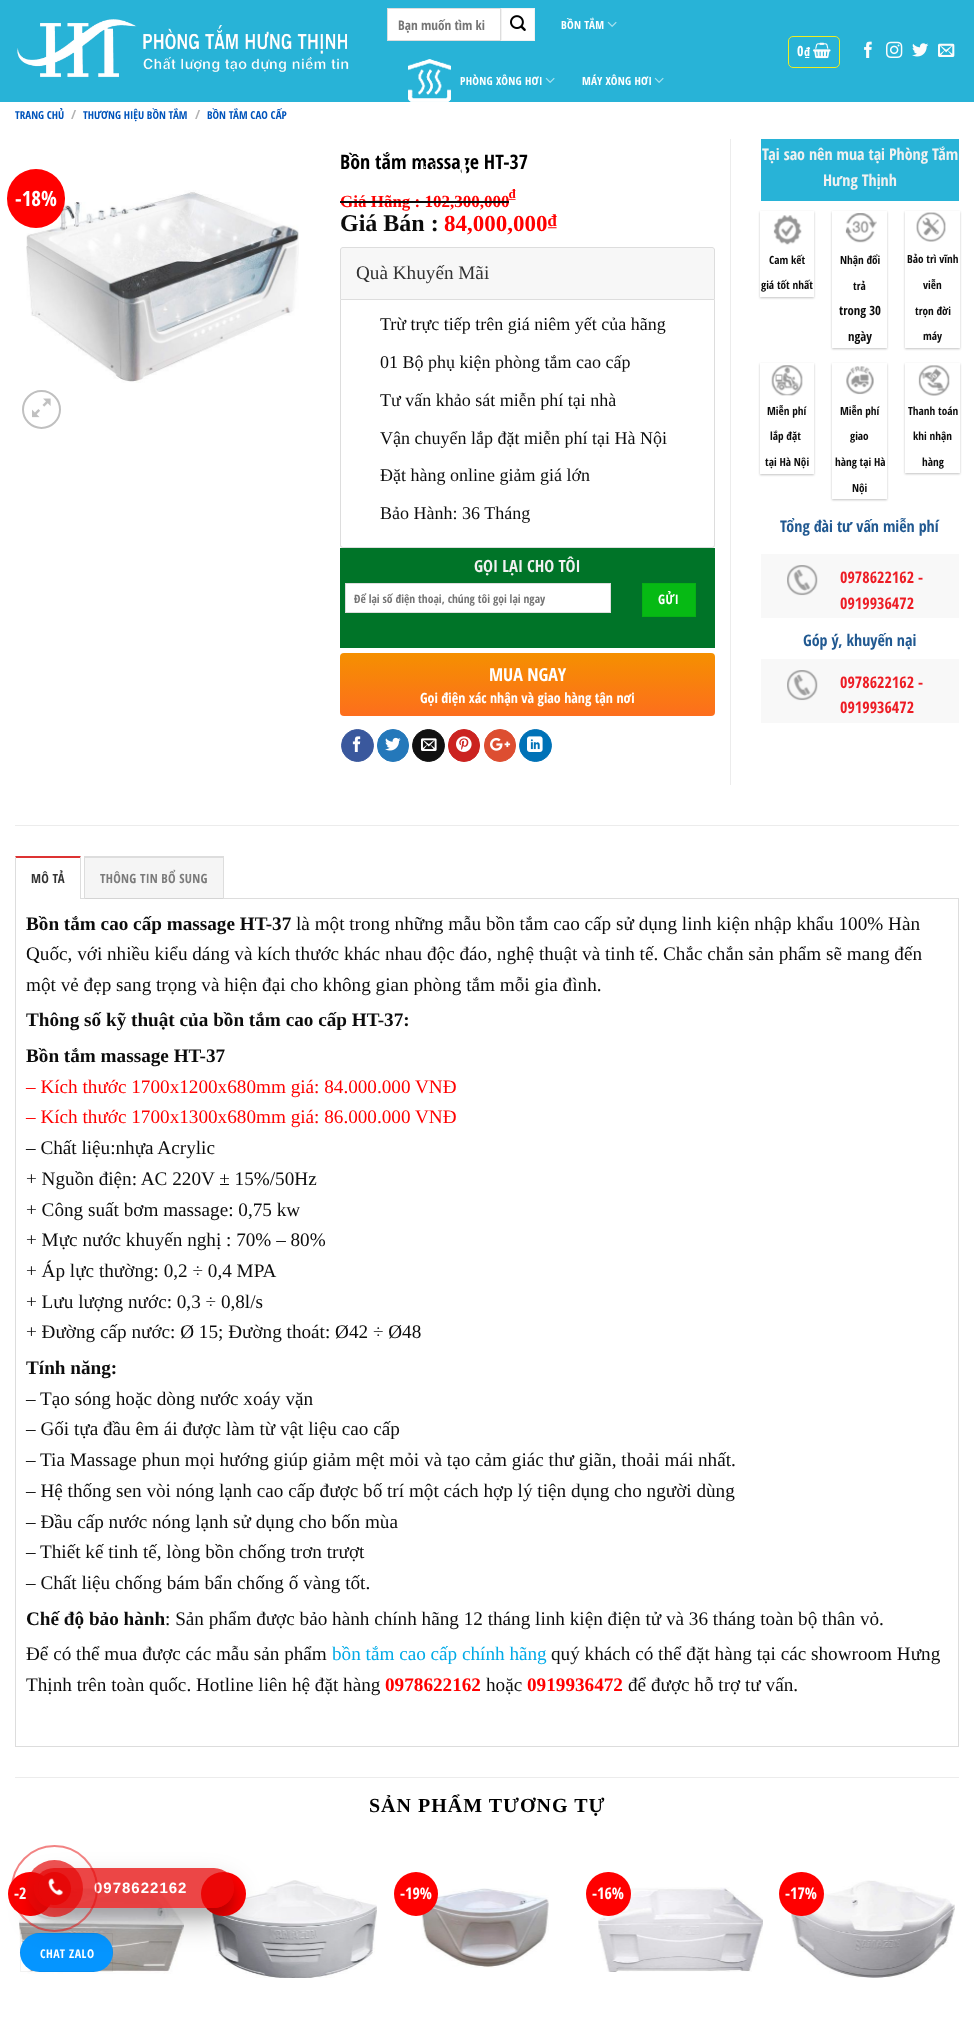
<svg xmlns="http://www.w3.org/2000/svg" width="974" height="2025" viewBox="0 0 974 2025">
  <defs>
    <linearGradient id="g1" gradientUnits="userSpaceOnUse" x1="528" y1="653" x2="528" y2="716"><stop offset="0" stop-color="#f59000"/><stop offset="1" stop-color="#fd6e1d"/></linearGradient>
    <clipPath id="clip1"><path d="M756 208H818V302H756ZM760 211H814V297H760Z" clip-rule="evenodd"/></clipPath>
    <filter id="blur1" x="-50%" y="-200%" width="200%" height="500%"><feGaussianBlur stdDeviation="1"/></filter>
    <clipPath id="clip2"><path d="M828 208H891V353H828ZM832 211H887V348H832Z" clip-rule="evenodd"/></clipPath>
    <clipPath id="clip3"><path d="M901 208H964V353H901ZM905 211H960V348H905Z" clip-rule="evenodd"/></clipPath>
    <clipPath id="clip4"><path d="M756 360H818V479H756ZM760 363H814V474H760Z" clip-rule="evenodd"/></clipPath>
    <clipPath id="clip5"><path d="M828 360H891V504H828ZM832 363H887V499H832Z" clip-rule="evenodd"/></clipPath>
    <clipPath id="clip6"><path d="M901 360H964V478H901ZM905 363H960V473H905Z" clip-rule="evenodd"/></clipPath>
    <clipPath id="clip7"><path d="M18 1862H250V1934H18ZM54 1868H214C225 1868 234 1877 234 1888C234 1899 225 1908 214 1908H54C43 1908 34 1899 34 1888C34 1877 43 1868 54 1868Z" clip-rule="evenodd"/></clipPath>
    <filter id="blur2" x="-50%" y="-200%" width="200%" height="500%"><feGaussianBlur stdDeviation="5"/></filter>
    <clipPath id="clip8"><path d="M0 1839H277V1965H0ZM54 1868H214C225 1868 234 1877 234 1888C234 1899 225 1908 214 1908H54C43 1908 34 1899 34 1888C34 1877 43 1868 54 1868Z" clip-rule="evenodd"/></clipPath>
    <filter id="blur3" x="-50%" y="-200%" width="200%" height="500%"><feGaussianBlur stdDeviation="14"/></filter>
  </defs>
  <rect width="100%" height="100%" fill="#ffffff"/>
  <rect x="0" y="0" width="974" height="102" fill="#28b3d7"/>
  <image x="17" y="19" width="332" height="59" href="img1.png"/>
  <rect x="387.5" y="8.5" width="113" height="32" fill="#ffffff" stroke="#dddddd"/>
  <text x="398" y="30" font-family="Open Sans Condensed" font-size="13.25" font-weight="bold" fill="#757575">Bạn muốn tìm ki</text>
  <rect x="501.5" y="8.5" width="33" height="32" fill="#ffffff" stroke="#f2f2f2"/>
  <image x="510" y="15" width="16" height="16" href="img2.png"/>
  <text x="561" y="29" font-family="Open Sans Condensed" font-size="11.25" font-weight="bold" letter-spacing="0.25" fill="#ffffff">BỒN TẮM</text>
  <image x="607" y="21" width="10" height="6" href="img3.png"/>
  <image x="408" y="59" width="43" height="43" href="img4.png"/>
  <text x="460" y="85" font-family="Open Sans Condensed" font-size="11.25" font-weight="bold" letter-spacing="0.25" fill="#ffffff">PHÒNG XÔNG HƠI</text>
  <image x="545" y="77" width="10" height="6" href="img3.png"/>
  <text x="582" y="85" font-family="Open Sans Condensed" font-size="11.25" font-weight="bold" letter-spacing="0.25" fill="#ffffff">MÁY XÔNG HƠI</text>
  <image x="654" y="77" width="10" height="6" href="img3.png"/>
  <text x="340" y="169" font-family="Open Sans Condensed" font-size="20" font-weight="bold" fill="#000000">Bồn tắm massage HT-37</text>
  <image x="417" y="158" width="50" height="16" href="img5.png"/>
  <rect x="788.5" y="36.5" width="51" height="31" rx="4.5" fill="none" stroke="#eeee22"/>
  <text x="797" y="56" font-family="Open Sans Condensed" font-size="14" font-weight="bold" fill="#ffffff">0</text>
  <text x="804" y="56" font-family="Open Sans Condensed" font-size="12" font-weight="bold" fill="#ffffff">₫</text>
  <image x="813" y="42" width="18" height="17" href="img6.png"/>
  <image x="864" y="41" width="8" height="17" href="img7.png"/>
  <image x="886" y="41" width="17" height="17" href="img8.png"/>
  <image x="912" y="43" width="17" height="14" href="img9.png"/>
  <image x="938" y="43" width="17" height="14" href="img10.png"/>
  <text x="15" y="119" font-family="Open Sans Condensed" font-size="11" font-weight="bold" fill="#0054bb">TRANG CHỦ</text>
  <text x="71" y="119" font-family="Open Sans Condensed" font-size="12.75" font-weight="bold" fill="#b2b2b2">/</text>
  <text x="83" y="119" font-family="Open Sans Condensed" font-size="11" font-weight="bold" fill="#0054bb">THƯƠNG HIỆU BỒN TẮM</text>
  <text x="195" y="119" font-family="Open Sans Condensed" font-size="12.75" font-weight="bold" fill="#b2b2b2">/</text>
  <text x="207" y="119" font-family="Open Sans Condensed" font-size="11" font-weight="bold" fill="#0054bb">BỒN TẮM CAO CẤP</text>
  <image x="26" y="190" width="273" height="193" href="img11.png"/>
  <rect x="7" y="169" width="58" height="59" rx="29" fill="#ff0000"/>
  <text x="15" y="206" font-family="Open Sans Condensed" font-size="21" font-weight="bold" fill="#ffffff">-18%</text>
  <circle cx="41.5" cy="409.5" r="18.5" fill="none" stroke="#c0c0c0" stroke-width="2"/>
  <image x="32" y="398" width="19" height="20" href="img12.png"/>
  <rect x="730" y="139" width="1" height="646" fill="#ececec"/>
  <text x="340" y="207" font-family="Liberation Serif" font-size="17" font-weight="bold" fill="#ff0000">Giá Hãng : 102,300,000</text>
  <rect x="340" y="201" width="169" height="2" fill="#0c0c0c"/>
  <text x="509" y="198" font-family="Liberation Serif" font-size="13" font-weight="bold" fill="#ff0000">₫</text>
  <text x="340" y="231" font-family="Liberation Serif" font-size="24" font-weight="bold" fill="#0c0c0c">Giá Bán :</text>
  <text x="444" y="231" font-family="Liberation Serif" font-size="23" font-weight="bold" fill="#ff0000">84,000,000</text>
  <text x="548" y="226" font-family="Liberation Serif" font-size="17" font-weight="bold" fill="#ff0000">₫</text>
  <path d="M343 247.5H712C713.5 247.5 714.5 248.5 714.5 250V299.5H340.5V250C340.5 248.5 341.5 247.5 343 247.5Z" fill="#f7f7f7" stroke="#dddddd"/>
  <text x="356" y="279" font-family="Liberation Serif" font-size="19.2" fill="#333333">Quà Khuyến Mãi</text>
  <path d="M340 300H715V545C715 547 714 548 712 548H343C341 548 340 547 340 545ZM341 300H714V545C714 546 713 547 712 547H343C342 547 341 546 341 545Z" fill="#dddddd" fill-rule="evenodd"/>
  <text x="380" y="330" font-family="Liberation Serif" font-size="18" fill="#0c0c0c">Trừ trực tiếp trên giá niêm yết của hãng</text>
  <text x="380" y="368" font-family="Liberation Serif" font-size="18" fill="#0c0c0c">01 Bộ phụ kiện phòng tắm cao cấp</text>
  <text x="380" y="406" font-family="Liberation Serif" font-size="18" fill="#0c0c0c">Tư vấn khảo sát miễn phí tại nhà</text>
  <text x="380" y="444" font-family="Liberation Serif" font-size="18" fill="#0c0c0c">Vận chuyển lắp đặt miễn phí tại Hà Nội</text>
  <text x="380" y="481" font-family="Liberation Serif" font-size="18" fill="#0c0c0c">Đặt hàng online giảm giá lớn</text>
  <text x="380" y="519" font-family="Liberation Serif" font-size="18" fill="#0c0c0c">Bảo Hành: 36 Tháng</text>
  <rect x="340" y="548" width="375" height="100" fill="#007428"/>
  <text x="474" y="572" font-family="Open Sans Condensed" font-size="16.75" font-weight="bold" fill="#f1f1f1">GỌI LẠI CHO TÔI</text>
  <rect x="345.5" y="583.5" width="265" height="29" fill="#ffffff" stroke="#dddddd"/>
  <text x="354" y="603" font-family="Open Sans Condensed" font-size="11.6" font-weight="bold" fill="#757575">Để lại số điện thoại, chúng tôi gọi lại ngay</text>
  <rect x="642.5" y="583.5" width="53" height="33" fill="#06ba14" stroke="#06b113"/>
  <text x="658" y="604" font-family="Open Sans Condensed" font-size="13" font-weight="bold" letter-spacing="0.5" fill="#ffffff">GỬI</text>
  <rect x="340" y="653" width="375" height="63" rx="4" fill="url(#g1)"/>
  <text x="489" y="681" font-family="Open Sans Condensed" font-size="18" font-weight="bold" fill="#ffffff">MUA NGAY</text>
  <text x="420" y="703" font-family="Open Sans Condensed" font-size="14" font-weight="bold" fill="#ffffff">Gọi điện xác nhận và giao hàng tận nơi</text>
  <circle cx="357.5" cy="745.5" r="16" fill="#3a589d" stroke="#3a589d"/>
  <image x="352" y="736" width="9" height="16" href="img13.png"/>
  <rect x="377.5" y="729.5" width="31" height="32" rx="15.5" fill="#2478ba" stroke="#2478ba"/>
  <image x="385" y="737" width="16" height="14" href="img14.png"/>
  <circle cx="428.5" cy="745.5" r="16" fill="#111111" stroke="#111111"/>
  <image x="421" y="738" width="16" height="13" href="img15.png"/>
  <rect x="448.5" y="729.5" width="31" height="32" rx="15.5" fill="#cb2320" stroke="#cb2320"/>
  <image x="456" y="736" width="16" height="16" href="img16.png"/>
  <rect x="484.5" y="729.5" width="31" height="32" rx="15.5" fill="#dd4e31" stroke="#dd4e31"/>
  <image x="490" y="737" width="21" height="14" href="img17.png"/>
  <circle cx="535.5" cy="745.5" r="16" fill="#0072b7" stroke="#0072b7"/>
  <image x="527" y="736" width="16" height="16" href="img18.png"/>
  <rect x="761" y="139" width="198" height="62" fill="#28b3d7"/>
  <text x="762" y="160" font-family="Open Sans Condensed" font-size="16" font-weight="bold" fill="#f1f1f1">Tại sao nên mua tại Phòng Tắm</text>
  <text x="823" y="186" font-family="Open Sans Condensed" font-size="16" font-weight="bold" fill="#f1f1f1">Hưng Thịnh</text>
  <g clip-path="url(#clip1)">
    <rect x="760" y="212" width="54" height="86" fill="#000000" fill-opacity="0.24" filter="url(#blur1)"/>
  </g>
  <image x="773" y="215" width="29" height="30" href="img19.png"/>
  <text x="769" y="264" font-family="Open Sans Condensed" font-size="11.25" font-weight="bold" fill="#0c0c0c">Cam kết</text>
  <text x="761" y="289" font-family="Open Sans Condensed" font-size="11.25" font-weight="bold" fill="#0c0c0c">giá tốt nhất</text>
  <g clip-path="url(#clip2)">
    <rect x="832" y="212" width="55" height="137" fill="#000000" fill-opacity="0.24" filter="url(#blur1)"/>
  </g>
  <image x="845" y="213" width="32" height="30" href="img20.png"/>
  <text x="840" y="264" font-family="Open Sans Condensed" font-size="11.25" font-weight="bold" fill="#0c0c0c">Nhận đổi</text>
  <text x="853" y="290" font-family="Open Sans Condensed" font-size="11.25" font-weight="bold" fill="#0c0c0c">trả</text>
  <text x="839" y="315" font-family="Open Sans Condensed" font-size="12.75" font-weight="bold" fill="#0c0c0c">trong 30</text>
  <text x="848" y="341" font-family="Open Sans Condensed" font-size="12.75" font-weight="bold" fill="#0c0c0c">ngày</text>
  <g clip-path="url(#clip3)">
    <rect x="905" y="212" width="55" height="137" fill="#000000" fill-opacity="0.24" filter="url(#blur1)"/>
  </g>
  <image x="916" y="212" width="30" height="30" href="img21.png"/>
  <text x="907" y="263" font-family="Open Sans Condensed" font-size="11.25" font-weight="bold" fill="#0c0c0c">Bảo trì vĩnh</text>
  <text x="923" y="289" font-family="Open Sans Condensed" font-size="11.25" font-weight="bold" fill="#0c0c0c">viễn</text>
  <text x="915" y="315" font-family="Open Sans Condensed" font-size="11.25" font-weight="bold" fill="#0c0c0c">trọn đời</text>
  <text x="923" y="340" font-family="Open Sans Condensed" font-size="11.25" font-weight="bold" fill="#0c0c0c">máy</text>
  <g clip-path="url(#clip4)">
    <rect x="760" y="364" width="54" height="111" fill="#000000" fill-opacity="0.24" filter="url(#blur1)"/>
  </g>
  <image x="771" y="365" width="32" height="31" href="img22.png"/>
  <text x="767" y="415" font-family="Open Sans Condensed" font-size="11.25" font-weight="bold" fill="#0c0c0c">Miễn phí</text>
  <text x="770" y="440" font-family="Open Sans Condensed" font-size="11.25" font-weight="bold" fill="#0c0c0c">lắp đặt</text>
  <text x="765" y="466" font-family="Open Sans Condensed" font-size="11.25" font-weight="bold" fill="#0c0c0c">tại Hà Nội</text>
  <g clip-path="url(#clip5)">
    <rect x="832" y="364" width="55" height="136" fill="#000000" fill-opacity="0.24" filter="url(#blur1)"/>
  </g>
  <image x="846" y="366" width="28" height="29" href="img23.png"/>
  <text x="840" y="415" font-family="Open Sans Condensed" font-size="11.25" font-weight="bold" fill="#0c0c0c">Miễn phí</text>
  <text x="850" y="440" font-family="Open Sans Condensed" font-size="11.25" font-weight="bold" fill="#0c0c0c">giao</text>
  <text x="835" y="466" font-family="Open Sans Condensed" font-size="11.25" font-weight="bold" fill="#0c0c0c">hàng tại Hà</text>
  <text x="852" y="492" font-family="Open Sans Condensed" font-size="11.25" font-weight="bold" fill="#0c0c0c">Nội</text>
  <g clip-path="url(#clip6)">
    <rect x="905" y="364" width="55" height="110" fill="#000000" fill-opacity="0.24" filter="url(#blur1)"/>
  </g>
  <image x="918" y="365" width="32" height="31" href="img24.png"/>
  <text x="908" y="415" font-family="Open Sans Condensed" font-size="11.25" font-weight="bold" fill="#0c0c0c">Thanh toán</text>
  <text x="913" y="440" font-family="Open Sans Condensed" font-size="11.25" font-weight="bold" fill="#0c0c0c">khi nhận</text>
  <text x="922" y="466" font-family="Open Sans Condensed" font-size="11.25" font-weight="bold" fill="#0c0c0c">hàng</text>
  <text x="780" y="532" font-family="Open Sans Condensed" font-size="16" font-weight="bold" fill="#215991">Tổng đài tư vấn miễn phí</text>
  <rect x="761" y="554" width="198" height="64" fill="#f8f8f8"/>
  <image x="787" y="565" width="31" height="31" href="img25.png"/>
  <text x="840" y="583" font-family="Open Sans Condensed" font-size="16" font-weight="bold" fill="#ed1c24">0978622162 -</text>
  <text x="840" y="609" font-family="Open Sans Condensed" font-size="16" font-weight="bold" fill="#ed1c24">0919936472</text>
  <text x="803" y="646" font-family="Open Sans Condensed" font-size="16" font-weight="bold" fill="#215991">Góp ý, khuyến nại</text>
  <rect x="761" y="659" width="198" height="64" fill="#f8f8f8"/>
  <image x="787" y="670" width="31" height="31" href="img25.png"/>
  <text x="840" y="688" font-family="Open Sans Condensed" font-size="16" font-weight="bold" fill="#ed1c24">0978622162 -</text>
  <text x="840" y="713" font-family="Open Sans Condensed" font-size="16" font-weight="bold" fill="#ed1c24">0919936472</text>
  <rect x="15" y="825" width="944" height="1" fill="#ececec"/>
  <rect x="15.5" y="898.5" width="943" height="848" fill="none" stroke="#dddddd"/>
  <rect x="15" y="898" width="66" height="1" fill="#ffffff"/>
  <path d="M15 856H81L80 858H16Z" fill="#dd3333"/>
  <path d="M81 856V899H80V858Z" fill="#dddddd"/>
  <path d="M15 899V856L16 858V899Z" fill="#dddddd"/>
  <text x="31" y="883" font-family="Open Sans Condensed" font-size="12.75" font-weight="bold" letter-spacing="0.25" fill="#333333">MÔ TẢ</text>
  <rect x="85" y="858" width="138" height="41" fill="#000000" fill-opacity="0.04"/>
  <rect x="84" y="856" width="140" height="2" fill="#dddddd"/>
  <rect x="223" y="856" width="1" height="43" fill="#dddddd"/>
  <rect x="84" y="856" width="1" height="43" fill="#dddddd"/>
  <text x="100" y="883" font-family="Open Sans Condensed" font-size="12.75" font-weight="bold" letter-spacing="0.25" fill="#7b7b7b">THÔNG TIN BỔ SUNG</text>
  <text x="26" y="930" font-family="Liberation Serif" font-size="19.2" font-weight="bold" fill="#0c0c0c">Bồn tắm cao cấp massage HT-37</text>
  <text x="296" y="930" font-family="Liberation Serif" font-size="19.2" fill="#0c0c0c">là một trong những mẫu bồn tắm cao cấp sử dụng linh kiện nhập khẩu 100% Hàn</text>
  <text x="26" y="960" font-family="Liberation Serif" font-size="19.2" fill="#0c0c0c">Quốc, với nhiều kiểu dáng và kích thước khác nhau độc đáo, nghệ thuật và tinh tế. Chắc chắn sản phẩm sẽ mang đến</text>
  <text x="26" y="991" font-family="Liberation Serif" font-size="19.2" fill="#0c0c0c">một vẻ đẹp sang trọng và hiện đại cho không gian phòng tắm mỗi gia đình.</text>
  <text x="26" y="1026" font-family="Liberation Serif" font-size="19.2" font-weight="bold" fill="#0c0c0c">Thông số kỹ thuật của bồn tắm cao cấp HT-37:</text>
  <text x="26" y="1062" font-family="Liberation Serif" font-size="19.2" font-weight="bold" fill="#0c0c0c">Bồn tắm massage HT-37</text>
  <text x="26" y="1093" font-family="Liberation Serif" font-size="19.2" fill="#ff0000">– Kích thước 1700x1200x680mm giá: 84.000.000 VNĐ</text>
  <text x="26" y="1123" font-family="Liberation Serif" font-size="19.2" fill="#ff0000">– Kích thước 1700x1300x680mm giá: 86.000.000 VNĐ</text>
  <text x="26" y="1154" font-family="Liberation Serif" font-size="19.2" fill="#0c0c0c">– Chất liệu:nhựa Acrylic</text>
  <text x="26" y="1185" font-family="Liberation Serif" font-size="19.2" fill="#0c0c0c">+ Nguồn điện: AC 220V ± 15%/50Hz</text>
  <text x="26" y="1216" font-family="Liberation Serif" font-size="19.2" fill="#0c0c0c">+ Công suất bơm massage: 0,75 kw</text>
  <text x="26" y="1246" font-family="Liberation Serif" font-size="19.2" fill="#0c0c0c">+ Mực nước khuyến nghị : 70% – 80%</text>
  <text x="26" y="1277" font-family="Liberation Serif" font-size="19.2" fill="#0c0c0c">+ Áp lực thường: 0,2 ÷ 0,4 MPA</text>
  <text x="26" y="1308" font-family="Liberation Serif" font-size="19.2" fill="#0c0c0c">+ Lưu lượng nước: 0,3 ÷ 0,8l/s</text>
  <text x="26" y="1338" font-family="Liberation Serif" font-size="19.2" fill="#0c0c0c">+ Đường cấp nước: Ø 15; Đường thoát: Ø42 ÷ Ø48</text>
  <text x="26" y="1374" font-family="Liberation Serif" font-size="19.2" font-weight="bold" fill="#0c0c0c">Tính năng:</text>
  <text x="26" y="1405" font-family="Liberation Serif" font-size="19.2" fill="#0c0c0c">– Tạo sóng hoặc dòng nước xoáy vặn</text>
  <text x="26" y="1435" font-family="Liberation Serif" font-size="19.2" fill="#0c0c0c">– Gối tựa đầu êm ái được làm từ vật liệu cao cấp</text>
  <text x="26" y="1466" font-family="Liberation Serif" font-size="19.2" fill="#0c0c0c">– Tia Massage phun mọi hướng giúp giảm mệt mỏi và tạo cảm giác thư giãn, thoải mái nhất.</text>
  <text x="26" y="1497" font-family="Liberation Serif" font-size="19.2" fill="#0c0c0c">– Hệ thống sen vòi nóng lạnh cao cấp được bố trí một cách hợp lý tiện dụng cho người dùng</text>
  <text x="26" y="1528" font-family="Liberation Serif" font-size="19.2" fill="#0c0c0c">– Đầu cấp nước nóng lạnh sử dụng cho bốn mùa</text>
  <text x="26" y="1558" font-family="Liberation Serif" font-size="19.2" fill="#0c0c0c">– Thiết kế tinh tế, lòng bồn chống trơn trượt</text>
  <text x="26" y="1589" font-family="Liberation Serif" font-size="19.2" fill="#0c0c0c">– Chất liệu chống bám bẩn chống ố vàng tốt.</text>
  <text x="26" y="1625" font-family="Liberation Serif" font-size="19.2" font-weight="bold" fill="#0c0c0c">Chế độ bảo hành</text>
  <text x="165" y="1625" font-family="Liberation Serif" font-size="19.2" fill="#0c0c0c">: Sản phẩm được bảo hành chính hãng 12 tháng linh kiện điện tử và 36 tháng toàn bộ thân vỏ.</text>
  <text x="26" y="1660" font-family="Liberation Serif" font-size="19.2" fill="#0c0c0c">Để có thể mua được các mẫu sản phẩm</text>
  <text x="332" y="1660" font-family="Liberation Serif" font-size="19.2" fill="#00aae7">bồn tắm cao cấp chính hãng</text>
  <text x="551" y="1660" font-family="Liberation Serif" font-size="19.2" fill="#0c0c0c">quý khách có thể đặt hàng tại các showroom Hưng</text>
  <text x="26" y="1691" font-family="Liberation Serif" font-size="19.2" fill="#0c0c0c">Thịnh trên toàn quốc. Hotline liên hệ đặt hàng</text>
  <text x="385" y="1691" font-family="Liberation Serif" font-size="19.2" font-weight="bold" fill="#ff0000">0978622162</text>
  <text x="486" y="1691" font-family="Liberation Serif" font-size="19.2" fill="#0c0c0c">hoặc</text>
  <text x="527" y="1691" font-family="Liberation Serif" font-size="19.2" font-weight="bold" fill="#ff0000">0919936472</text>
  <text x="628" y="1691" font-family="Liberation Serif" font-size="19.2" fill="#0c0c0c">để được hỗ trợ tư vấn.</text>
  <rect x="15" y="1777" width="944" height="1" fill="#ececec"/>
  <text x="369" y="1812" font-family="Liberation Serif" font-size="20" font-weight="bold" letter-spacing="1" fill="#000000">SẢN PHẨM TƯƠNG TỰ</text>
  <image x="19" y="1888" width="165" height="86" href="img26.png"/>
  <rect x="8" y="1872" width="45" height="44" rx="22" fill="#ff0000"/>
  <text x="14" y="1899" font-family="Open Sans Condensed" font-size="16" font-weight="bold" fill="#ffffff">-2</text>
  <image x="212" y="1880" width="165" height="98" href="img27.png"/>
  <rect x="201" y="1872" width="45" height="44" rx="22" fill="#ff0000"/>
  <image x="421" y="1888" width="128" height="80" href="img28.png"/>
  <circle cx="416" cy="1894" r="22" fill="#ff0000"/>
  <text x="400" y="1899" font-family="Open Sans Condensed" font-size="16" font-weight="bold" fill="#ffffff">-19%</text>
  <image x="598" y="1887" width="165" height="85" href="img29.png"/>
  <rect x="586" y="1872" width="45" height="44" rx="22" fill="#ff0000"/>
  <text x="592" y="1899" font-family="Open Sans Condensed" font-size="16" font-weight="bold" fill="#ffffff">-16%</text>
  <image x="791" y="1880" width="164" height="98" href="img30.png"/>
  <rect x="779" y="1872" width="45" height="44" rx="22" fill="#ff0000"/>
  <text x="785" y="1899" font-family="Open Sans Condensed" font-size="16" font-weight="bold" fill="#ffffff">-17%</text>
  <rect x="20" y="1933" width="93" height="39" rx="19.5" fill="#0595ff"/>
  <rect x="20.5" y="1933.5" width="92" height="38" fill="none" stroke="#000000" stroke-opacity="0.05"/>
  <g clip-path="url(#clip7)">
    <rect x="34" y="1878" width="200" height="40" rx="20" fill="#000000" fill-opacity="0.1" filter="url(#blur2)"/>
  </g>
  <g clip-path="url(#clip8)">
    <rect x="34" y="1882" width="200" height="40" rx="20" fill="#000000" fill-opacity="0.25" filter="url(#blur3)"/>
  </g>
  <rect x="34" y="1868" width="200" height="40" rx="20" fill="#e60808" fill-opacity="0.75"/>
  <text x="94" y="1893" font-family="Liberation Sans" font-size="15" font-weight="bold" letter-spacing="1" fill="#ffffff">0978622162</text>
  <circle cx="54.5" cy="1888.5" r="42.5" fill="none" stroke="#e60808" stroke-opacity="0.5" stroke-width="2"/>
  <circle cx="54.5" cy="1888.5" r="28.5" fill="#e60808" fill-opacity="0.7"/>
  <circle cx="54.5" cy="1888.5" r="16.5" fill="#e60808"/>
  <image x="48" y="1878" width="16" height="18" href="img31.png"/>
  <text x="40" y="1958" font-family="Open Sans Condensed" font-size="12" font-weight="bold" letter-spacing="0.5" fill="#ffffff">CHAT ZALO</text>
</svg>
